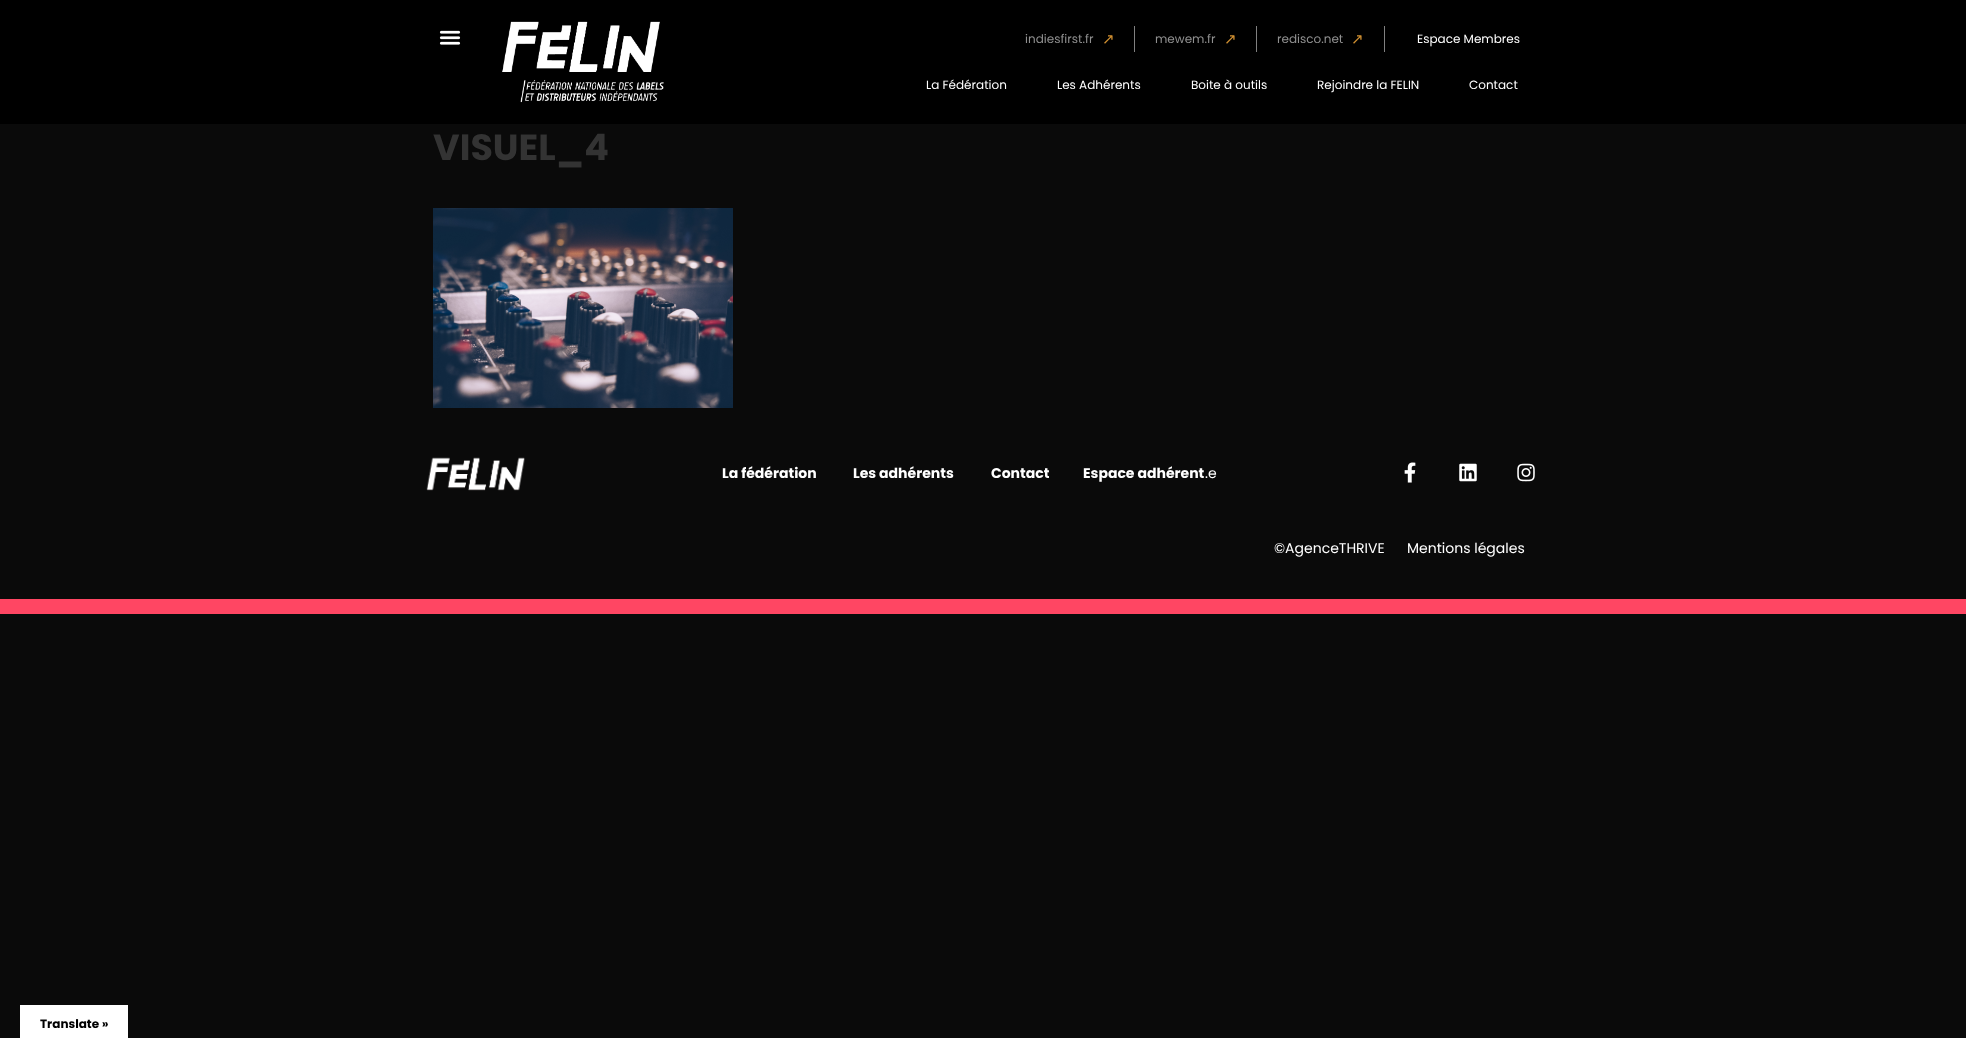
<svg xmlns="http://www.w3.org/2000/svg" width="1966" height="1038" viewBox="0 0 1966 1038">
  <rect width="100%" height="100%" fill="#0a0a0a"/>
  <rect x="0" y="0" width="1966" height="124" fill="#000000"/>
  <image x="439" y="30" width="22" height="15" href="img1.png"/>
  <image x="502" y="21" width="162" height="82" href="img2.png"/>
  <rect x="1134" y="26" width="1" height="26" fill="#808080"/>
  <text x="1025" y="43" font-family="Poppins" font-size="12" fill="#909090">indiesfirst.fr</text>
  <text x="1102" y="44" font-family="DejaVu Sans" font-size="15" fill="#d19031">↗</text>
  <rect x="1256" y="26" width="1" height="26" fill="#808080"/>
  <text x="1155" y="43" font-family="Poppins" font-size="12" fill="#909090">mewem.fr</text>
  <text x="1224" y="44" font-family="DejaVu Sans" font-size="15" fill="#d19031">↗</text>
  <rect x="1384" y="26" width="1" height="26" fill="#808080"/>
  <text x="1277" y="43" font-family="Poppins" font-size="12" fill="#909090">redisco.net</text>
  <text x="1351" y="44" font-family="DejaVu Sans" font-size="15" fill="#d19031">↗</text>
  <text x="1417" y="43" font-family="Poppins" font-size="12" fill="#ffffff">Espace Membres</text>
  <text x="926" y="89" font-family="Poppins" font-size="12" fill="#ffffff">La Fédération</text>
  <text x="1057" y="89" font-family="Poppins" font-size="12" fill="#ffffff">Les Adhérents</text>
  <text x="1191" y="89" font-family="Poppins" font-size="12" fill="#ffffff">Boite à outils</text>
  <text x="1317" y="89" font-family="Poppins" font-size="12" fill="#ffffff">Rejoindre la FELIN</text>
  <text x="1469" y="89" font-family="Poppins" font-size="12" fill="#ffffff">Contact</text>
  <text x="433" y="160" font-family="Poppins" font-size="36.5" font-weight="bold" fill="#333333">VISUEL_4</text>
  <image x="433" y="208" width="300" height="200" href="img3.png"/>
  <image x="426" y="457" width="99" height="34" href="img4.png"/>
  <text x="722" y="478" font-family="Poppins" font-size="14" font-weight="bold" fill="#ffffff">La fédération</text>
  <text x="853" y="478" font-family="Poppins" font-size="14" font-weight="bold" fill="#ffffff">Les adhérents</text>
  <text x="991" y="478" font-family="Poppins" font-size="14" font-weight="bold" fill="#ffffff">Contact</text>
  <text x="1083" y="478" font-family="Poppins" font-size="14" font-weight="bold" fill="#ffffff">Espace adhérent</text>
  <text x="1205" y="478" font-family="Poppins" font-size="14" fill="#ffffff">.e</text>
  <image x="1404" y="462" width="12" height="21" href="img5.png"/>
  <image x="1459" y="463" width="18" height="19" href="img6.png"/>
  <image x="1517" y="463" width="18" height="19" href="img7.png"/>
  <rect x="0" y="599" width="1966" height="15" fill="#ff4663"/>
  <text x="1274" y="553" font-family="Poppins" font-size="14" fill="#ffffff">©AgenceTHRIVE</text>
  <text x="1407" y="553" font-family="Poppins" font-size="14" fill="#ffffff">Mentions légales</text>
  <rect x="20" y="1005" width="108" height="33" fill="#ffffff"/>
  <text x="40" y="1028" font-family="Poppins" font-size="12" font-weight="bold" fill="#000000">Translate »</text>
</svg>
